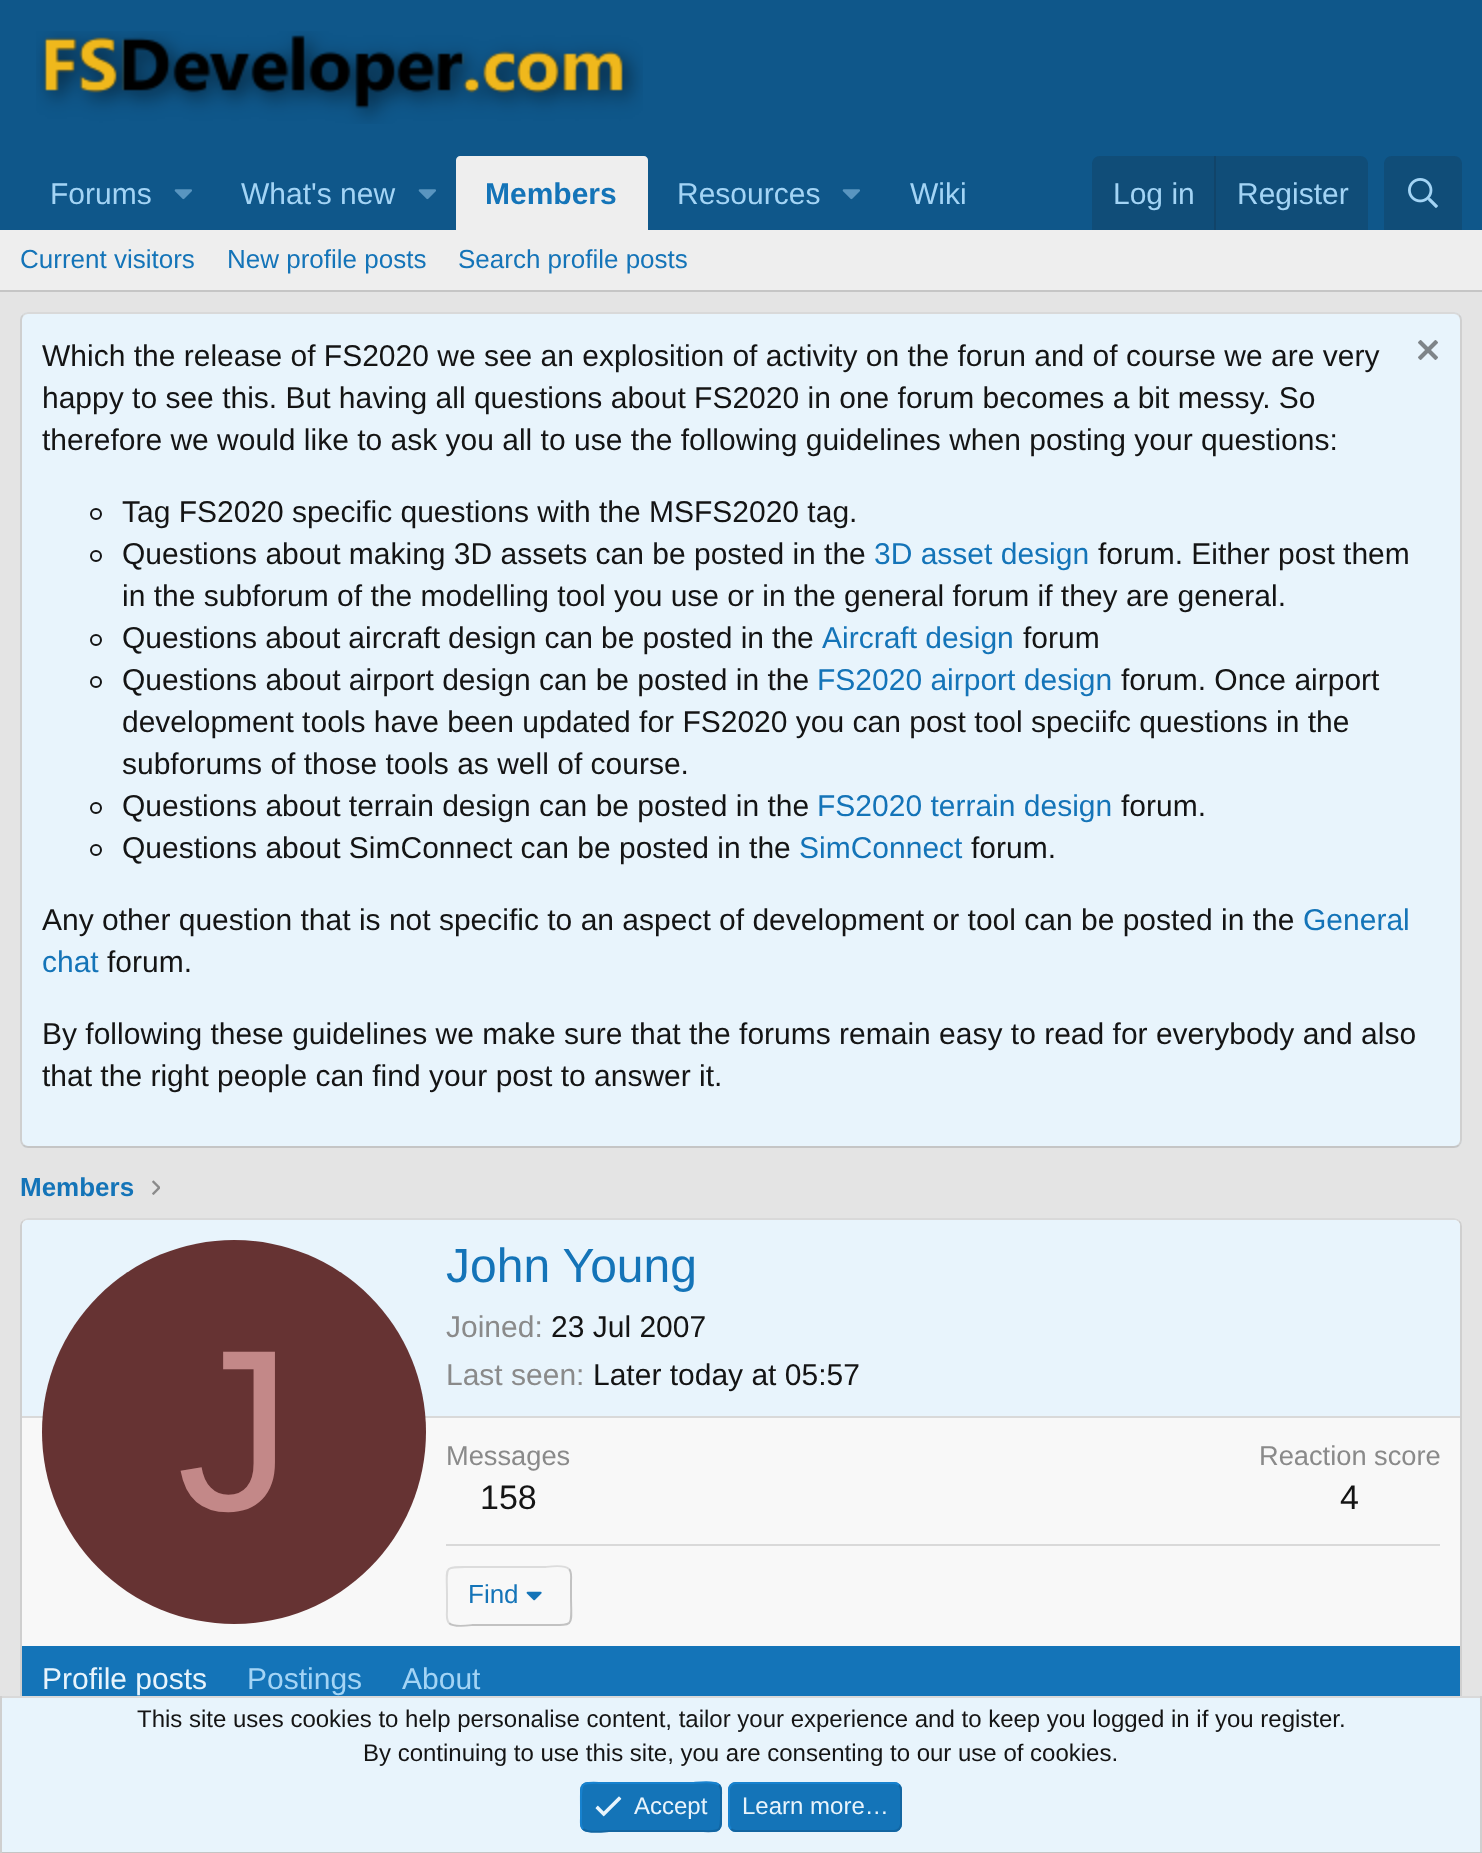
<svg xmlns="http://www.w3.org/2000/svg" width="1482" height="1853" viewBox="0 0 1482 1853">
  <rect width="100%" height="100%" fill="#e4e4e4"/>
  <rect x="0" y="0" width="1482" height="230" fill="#0f578a"/>
  <image x="36" y="31" width="607" height="93" href="img1.png"/>
  <text x="50" y="204" font-family="Liberation Sans" font-size="30" fill="#a3d4f5">Forums</text>
  <image x="174" y="189" width="18" height="11" href="img2.png"/>
  <text x="241" y="204" font-family="Liberation Sans" font-size="30" fill="#a3d4f5">What's new</text>
  <image x="418" y="189" width="18" height="11" href="img2.png"/>
  <path d="M460 156H644C646 156 648 158 648 160V230H456V160C456 158 458 156 460 156Z" fill="#eeeeee"/>
  <text x="485" y="204" font-family="Liberation Sans" font-size="30" font-weight="bold" fill="#1474b8">Members</text>
  <text x="677" y="204" font-family="Liberation Sans" font-size="30" fill="#a3d4f5">Resources</text>
  <image x="842" y="189" width="18" height="11" href="img2.png"/>
  <text x="910" y="204" font-family="Liberation Sans" font-size="30" fill="#a3d4f5">Wiki</text>
  <path d="M1100 156H1360C1364.5 156 1368 159.5 1368 164V230H1092V164C1092 159.5 1095.5 156 1100 156Z" fill="#104d78"/>
  <text x="1113" y="204" font-family="Liberation Sans" font-size="30" fill="#a3d4f5">Log in</text>
  <rect x="1214" y="156" width="2" height="74" fill="#114469"/>
  <text x="1237" y="204" font-family="Liberation Sans" font-size="30" fill="#a3d4f5">Register</text>
  <path d="M1392 156H1454C1458.5 156 1462 159.5 1462 164V230H1384V164C1384 159.5 1387.5 156 1392 156Z" fill="#104d78"/>
  <image x="1408" y="178" width="30" height="30" href="img3.png"/>
  <rect x="0" y="230" width="1482" height="60" fill="#eeeeee"/>
  <rect x="0" y="290" width="1482" height="2" fill="#c5c5c5"/>
  <text x="20" y="268" font-family="Liberation Sans" font-size="26" fill="#1474b8">Current visitors</text>
  <text x="227" y="268" font-family="Liberation Sans" font-size="26" fill="#1474b8">New profile posts</text>
  <text x="458" y="268" font-family="Liberation Sans" font-size="26" fill="#1474b8">Search profile posts</text>
  <rect x="20" y="312" width="1442" height="836" rx="8" fill="#e8f4fc"/>
  <path d="M23 315C24.5 313.5 26 313 28 313H1454C1456 313 1457.5 313.5 1459 315" fill="none" stroke="#d9d9d9" stroke-width="2"/>
  <path d="M1459 315C1460.5 316.5 1461 318 1461 320V1140C1461 1142 1460.5 1143.5 1459 1145" fill="none" stroke="#cfcfcf" stroke-width="2"/>
  <path d="M1459 1145C1457.5 1146.5 1456 1147 1454 1147H28C26 1147 24.5 1146.5 23 1145" fill="none" stroke="#c5c5c5" stroke-width="2"/>
  <path d="M23 1145C21.5 1143.5 21 1142 21 1140V320C21 318 21.5 316.5 23 315" fill="none" stroke="#cfcfcf" stroke-width="2"/>
  <text x="42" y="366" font-family="Liberation Sans" font-size="30" fill="#141414">Which the release of FS2020 we see an explosition of activity on the forun and of course we are very</text>
  <image x="1418" y="340" width="20" height="20" href="img4.png"/>
  <text x="42" y="408" font-family="Liberation Sans" font-size="30" fill="#141414">happy to see this. But having all questions about FS2020 in one forum becomes a bit messy. So</text>
  <text x="42" y="450" font-family="Liberation Sans" font-size="30" fill="#141414">therefore we would like to ask you all to use the following guidelines when posting your questions:</text>
  <circle cx="96" cy="514" r="5" fill="none" stroke="#141414" stroke-width="2"/>
  <text x="122" y="522" font-family="Liberation Sans" font-size="30" fill="#141414">Tag FS2020 specific questions with the MSFS2020 tag.</text>
  <circle cx="96" cy="556" r="5" fill="none" stroke="#141414" stroke-width="2"/>
  <text x="122" y="564" font-family="Liberation Sans" font-size="30" fill="#141414">Questions about making 3D assets can be posted in the</text>
  <text x="874" y="564" font-family="Liberation Sans" font-size="30" fill="#1474b8">3D asset design</text>
  <text x="1098" y="564" font-family="Liberation Sans" font-size="30" fill="#141414">forum. Either post them</text>
  <text x="122" y="606" font-family="Liberation Sans" font-size="30" fill="#141414">in the subforum of the modelling tool you use or in the general forum if they are general.</text>
  <circle cx="96" cy="640" r="5" fill="none" stroke="#141414" stroke-width="2"/>
  <text x="122" y="648" word-spacing="-0.25" font-family="Liberation Sans" font-size="30" fill="#141414">Questions about aircraft design can be posted in the</text>
  <text x="822" y="648" font-family="Liberation Sans" font-size="30" fill="#1474b8">Aircraft design</text>
  <text x="1023" y="648" font-family="Liberation Sans" font-size="30" fill="#141414">forum</text>
  <circle cx="96" cy="682" r="5" fill="none" stroke="#141414" stroke-width="2"/>
  <text x="122" y="690" font-family="Liberation Sans" font-size="30" fill="#141414">Questions about airport design can be posted in the</text>
  <text x="817" y="690" font-family="Liberation Sans" font-size="30" fill="#1474b8">FS2020 airport design</text>
  <text x="1121" y="690" font-family="Liberation Sans" font-size="30" fill="#141414">forum. Once airport</text>
  <text x="122" y="732" font-family="Liberation Sans" font-size="30" fill="#141414">development tools have been updated for FS2020 you can post tool speciifc questions in the</text>
  <text x="122" y="774" font-family="Liberation Sans" font-size="30" fill="#141414">subforums of those tools as well of course.</text>
  <circle cx="96" cy="808" r="5" fill="none" stroke="#141414" stroke-width="2"/>
  <text x="122" y="816" font-family="Liberation Sans" font-size="30" fill="#141414">Questions about terrain design can be posted in the</text>
  <text x="817" y="816" font-family="Liberation Sans" font-size="30" fill="#1474b8">FS2020 terrain design</text>
  <text x="1121" y="816" font-family="Liberation Sans" font-size="30" fill="#141414">forum.</text>
  <circle cx="96" cy="850" r="5" fill="none" stroke="#141414" stroke-width="2"/>
  <text x="122" y="858" font-family="Liberation Sans" font-size="30" fill="#141414">Questions about SimConnect can be posted in the</text>
  <text x="799" y="858" font-family="Liberation Sans" font-size="30" fill="#1474b8">SimConnect</text>
  <text x="971" y="858" font-family="Liberation Sans" font-size="30" fill="#141414">forum.</text>
  <text x="42" y="930" font-family="Liberation Sans" font-size="30" fill="#141414">Any other question that is not specific to an aspect of development or tool can be posted in the</text>
  <text x="1303" y="930" font-family="Liberation Sans" font-size="30" fill="#1474b8">General</text>
  <text x="42" y="972" font-family="Liberation Sans" font-size="30" fill="#1474b8">chat</text>
  <text x="107" y="972" font-family="Liberation Sans" font-size="30" fill="#141414">forum.</text>
  <text x="42" y="1044" font-family="Liberation Sans" font-size="30" fill="#141414">By following these guidelines we make sure that the forums remain easy to read for everybody and also</text>
  <text x="42" y="1086" font-family="Liberation Sans" font-size="30" fill="#141414">that the right people can find your post to answer it.</text>
  <text x="20" y="1196" font-family="Liberation Sans" font-size="26" font-weight="bold" fill="#1474b8">Members</text>
  <image x="152" y="1180" width="8" height="15" href="img5.png"/>
  <rect x="20" y="1218" width="1442" height="502" rx="8" fill="#f8f8f8"/>
  <path d="M23 1221C24.5 1219.5 26 1219 28 1219H1454C1456 1219 1457.5 1219.5 1459 1221" fill="none" stroke="#d9d9d9" stroke-width="2"/>
  <path d="M1459 1221C1460.5 1222.5 1461 1224 1461 1226V1712C1461 1714 1460.5 1715.5 1459 1717" fill="none" stroke="#cfcfcf" stroke-width="2"/>
  <path d="M23 1717C21.5 1715.5 21 1714 21 1712V1226C21 1224 21.5 1222.5 23 1221" fill="none" stroke="#cfcfcf" stroke-width="2"/>
  <path d="M28 1220H1454C1457.5 1220 1460 1222.5 1460 1226V1418H22V1226C22 1222.5 24.5 1220 28 1220Z" fill="#e8f4fc"/>
  <rect x="22" y="1416" width="1438" height="2" fill="#d9d9d9"/>
  <text x="446" y="1282" font-family="Liberation Sans" font-size="48" fill="#1474b8">John Young</text>
  <text x="446" y="1337" font-family="Liberation Sans" font-size="30" fill="#8a8a8a">Joined:</text>
  <text x="551" y="1337" font-family="Liberation Sans" font-size="30" fill="#141414">23 Jul 2007</text>
  <text x="446" y="1385" font-family="Liberation Sans" font-size="30" fill="#8a8a8a">Last seen:</text>
  <text x="593" y="1385" font-family="Liberation Sans" font-size="30" fill="#141414">Later today at 05:57</text>
  <circle cx="234" cy="1432" r="192" fill="#663333"/>
  <text x="177" y="1510" font-family="Liberation Sans" font-size="230" fill="#c38888">J</text>
  <text x="446" y="1465" font-family="Liberation Sans" font-size="27.25" fill="#8a8a8a">Messages</text>
  <text x="480" y="1509" font-family="Liberation Sans" font-size="34" fill="#141414">158</text>
  <text x="1259" y="1465" font-family="Liberation Sans" font-size="27.25" fill="#8a8a8a">Reaction score</text>
  <text x="1340" y="1509" font-family="Liberation Sans" font-size="34" fill="#141414">4</text>
  <rect x="446" y="1544" width="994" height="2" fill="#d9d9d9"/>
  <path d="M569 1569C572 1572 571 1577.5 571 1581.5V1596C571 1627.5 576 1625 545.5 1625H472.5C471.5 1625 454 1628 449 1623" fill="none" stroke="#c2c2c2" stroke-width="2"/>
  <path d="M449 1623C446 1620 447 1614.5 447 1610.5V1596C447 1564.5 442 1567 472.5 1567H545.5C546.5 1567 564 1564 569 1569" fill="none" stroke="#dcdcdc" stroke-width="2"/>
  <text x="468" y="1603" font-family="Liberation Sans" font-size="26" fill="#1474b8">Find</text>
  <image x="526" y="1591" width="16" height="10" href="img6.png"/>
  <rect x="22" y="1646" width="1438" height="50" fill="#1474b8"/>
  <text x="42" y="1689" font-family="Liberation Sans" font-size="30" fill="#e8f4fc">Profile posts</text>
  <text x="247" y="1689" font-family="Liberation Sans" font-size="30" fill="#a3d4f5">Postings</text>
  <text x="402" y="1689" font-family="Liberation Sans" font-size="30" fill="#a3d4f5">About</text>
  <rect x="2" y="1698" width="1478" height="154" fill="#e8f4fc"/>
  <rect x="0" y="1696" width="1482" height="2" fill="#d9d9d9"/>
  <rect x="1480" y="1696" width="2" height="157" fill="#cfcfcf"/>
  <rect x="0" y="1852" width="1482" height="1" fill="#c5c5c5"/>
  <rect x="0" y="1696" width="2" height="157" fill="#cfcfcf"/>
  <text x="137" y="1727" font-family="Liberation Sans" font-size="24" fill="#141414">This site uses cookies to help personalise content, tailor your experience and to keep you logged in if you register.</text>
  <text x="363" y="1761" font-family="Liberation Sans" font-size="24" fill="#141414">By continuing to use this site, you are consenting to our use of cookies.</text>
  <rect x="580" y="1782" width="142" height="50" rx="8" fill="#1474b8"/>
  <path d="M719 1785C722 1788 721 1792 721 1795.5V1807C721 1835 723.5 1831 693 1831H609C607 1831 588 1834 583 1829" fill="none" stroke="#1265a1" stroke-width="2"/>
  <path d="M583 1829C580 1826 581 1822 581 1818.5V1807C581 1779 578.5 1783 609 1783H693C695 1783 714 1780 719 1785" fill="none" stroke="#1782cf" stroke-width="2"/>
  <image x="595" y="1796" width="27" height="21" href="img7.png"/>
  <text x="634" y="1814" font-family="Liberation Sans" font-size="24" fill="#e8f4fc">Accept</text>
  <rect x="728" y="1782" width="174" height="50" rx="8" fill="#1474b8"/>
  <path d="M899 1785C900.5 1786.5 901 1788 901 1790V1824C901 1826 900.5 1827.5 899 1829C897.5 1830.5 896 1831 894 1831H736C734 1831 732.5 1830.5 731 1829" fill="none" stroke="#1265a1" stroke-width="2"/>
  <path d="M731 1829C729.5 1827.5 729 1826 729 1824V1790C729 1788 729.5 1786.5 731 1785C732.5 1783.5 734 1783 736 1783H894C896 1783 897.5 1783.5 899 1785" fill="none" stroke="#1782cf" stroke-width="2"/>
  <text x="742" y="1814" font-family="Liberation Sans" font-size="24" fill="#e8f4fc">Learn more…</text>
</svg>
